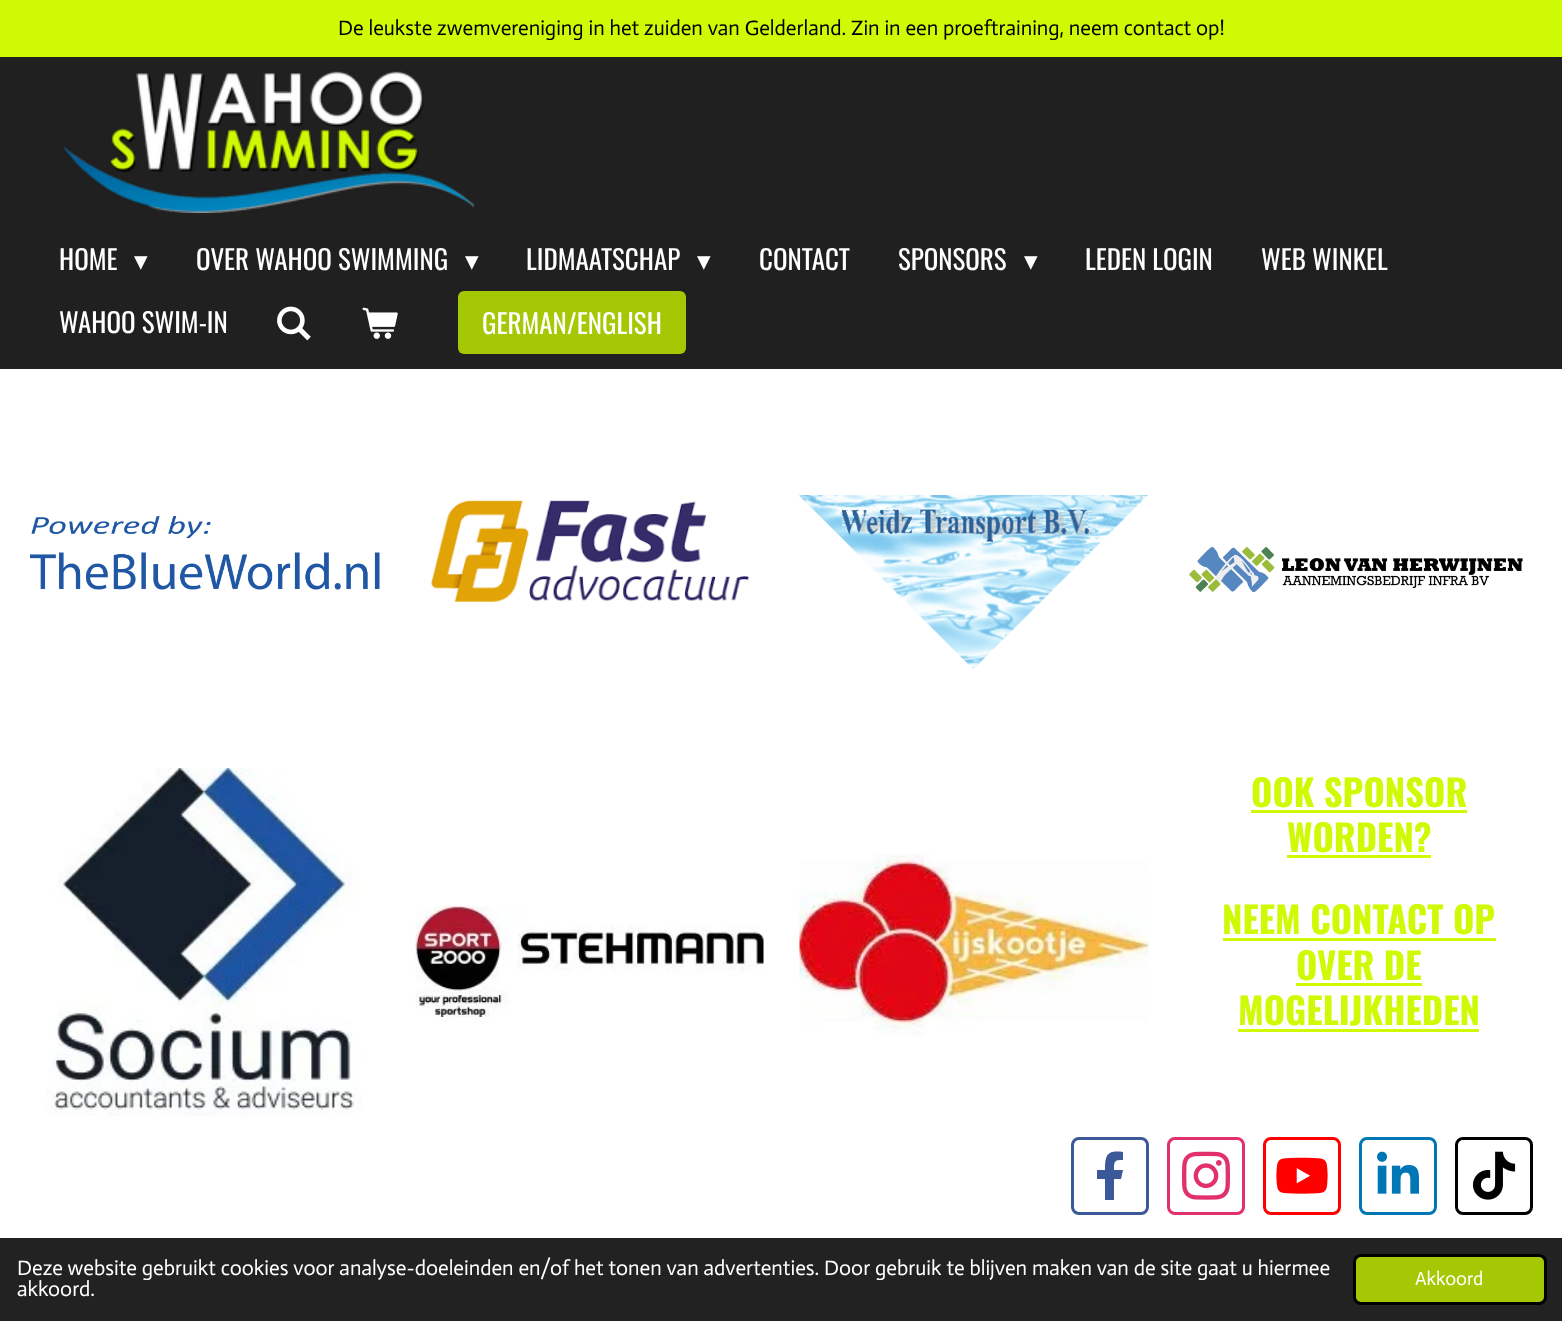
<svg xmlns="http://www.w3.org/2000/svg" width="1562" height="1321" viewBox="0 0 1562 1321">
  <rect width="100%" height="100%" fill="#ffffff"/>
  <rect x="0" y="57" width="1562" height="312" fill="#202020"/>
  <rect x="0" y="0" width="1562" height="57" fill="#cefa05"/>
  <text x="338" y="35" font-family="Actor" font-size="21" fill="#000000">De leukste zwemvereniging in het zuiden van Gelderland. Zin in een proeftraining, neem contact op!</text>
  <image x="60" y="71" width="414" height="142" href="img1.png"/>
  <text x="59" y="270" font-family="Oswald" font-size="27" fill="#ffffff">HOME</text>
  <text x="134" y="270" font-family="DejaVu Sans" font-size="27" fill="#ffffff">▾</text>
  <text x="196" y="270" font-family="Oswald" font-size="27" fill="#ffffff">OVER WAHOO SWIMMING</text>
  <text x="465" y="270" font-family="DejaVu Sans" font-size="27" fill="#ffffff">▾</text>
  <text x="526" y="270" font-family="Oswald" font-size="27" fill="#ffffff">LIDMAATSCHAP</text>
  <text x="697" y="270" font-family="DejaVu Sans" font-size="27" fill="#ffffff">▾</text>
  <text x="759" y="270" font-family="Oswald" font-size="27" fill="#ffffff">CONTACT</text>
  <text x="898" y="270" font-family="Oswald" font-size="27" fill="#ffffff">SPONSORS</text>
  <text x="1024" y="270" font-family="DejaVu Sans" font-size="27" fill="#ffffff">▾</text>
  <text x="1085" y="270" font-family="Oswald" font-size="27" fill="#ffffff">LEDEN LOGIN</text>
  <text x="1261" y="270" font-family="Oswald" font-size="27" fill="#ffffff">WEB WINKEL</text>
  <text x="59" y="333" font-family="Oswald" font-size="27" fill="#ffffff">WAHOO SWIM-IN</text>
  <image x="277" y="306" width="34" height="35" href="img2.png"/>
  <image x="362" y="307" width="36" height="32" href="img3.png"/>
  <rect x="458" y="291" width="228" height="63" rx="6" fill="#a5c804"/>
  <text x="482" y="334" font-family="Oswald" font-size="27" fill="#ffffff">GERMAN/ENGLISH</text>
  <image x="30" y="516" width="350" height="74" href="img4.png"/>
  <image x="431" y="500" width="319" height="102" href="img5.png"/>
  <image x="799" y="495" width="349" height="175" href="img6.png"/>
  <image x="1189" y="546" width="334" height="47" href="img7.png"/>
  <image x="46" y="768" width="316" height="348" href="img8.png"/>
  <image x="415" y="906" width="349" height="111" href="img9.png"/>
  <image x="799" y="853" width="350" height="183" href="img10.png"/>
  <text x="1251" y="807" font-family="Oswald" font-size="36.5" font-weight="bold" fill="#cefa05">OOK SPONSOR</text>
  <rect x="1251" y="810" width="216" height="3" fill="#cefa05"/>
  <text x="1287" y="852" font-family="Oswald" font-size="36.5" font-weight="bold" fill="#cefa05">WORDEN?</text>
  <rect x="1287" y="855" width="144" height="3" fill="#cefa05"/>
  <text x="1222" y="934" font-family="Oswald" font-size="36.5" font-weight="bold" fill="#cefa05">NEEM CONTACT OP</text>
  <rect x="1223" y="938" width="273" height="3" fill="#cefa05"/>
  <text x="1296" y="980" font-family="Oswald" font-size="36.5" font-weight="bold" fill="#cefa05">OVER DE</text>
  <rect x="1296" y="983" width="126" height="3" fill="#cefa05"/>
  <text x="1238" y="1025" font-family="Oswald" font-size="36.5" font-weight="bold" fill="#cefa05">MOGELIJKHEDEN</text>
  <rect x="1238" y="1029" width="241" height="3" fill="#cefa05"/>
  <rect x="1072.5" y="1138.5" width="75" height="75" rx="6.5" fill="none" stroke="#3b5998" stroke-width="3"/>
  <path d="M1121 1179L1123 1170H1114C1114 1161 1114 1160 1123 1160V1152C1107 1150 1105 1155 1105 1170H1097V1179H1105V1200H1114V1179Z" fill="#3b5998"/>
  <rect x="1168.5" y="1138.5" width="75" height="75" rx="6.5" fill="none" stroke="#e1306c" stroke-width="3"/>
  <image x="1182" y="1151" width="48" height="49" href="img11.png"/>
  <rect x="1264.5" y="1138.5" width="75" height="75" rx="6.5" fill="none" stroke="#ff0000" stroke-width="3"/>
  <image x="1276" y="1157" width="52" height="37" href="img12.png"/>
  <rect x="1360.5" y="1138.5" width="75" height="75" rx="6.5" fill="none" stroke="#0077b5" stroke-width="3"/>
  <image x="1377" y="1151" width="42" height="43" href="img13.png"/>
  <rect x="1456.5" y="1138.5" width="75" height="75" rx="6.5" fill="none" stroke="#010101" stroke-width="3"/>
  <image x="1472" y="1151" width="44" height="49" href="img14.png"/>
  <rect x="0" y="1238" width="1562" height="83" fill="#222222"/>
  <text x="17" y="1275" font-family="Actor" font-size="21" fill="#ffffff">Deze website gebruikt cookies voor analyse-doeleinden en/of het tonen van advertenties. Door gebruik te blijven maken van de site gaat u hiermee</text>
  <text x="17" y="1296" font-family="Actor" font-size="21" fill="#ffffff">akkoord.</text>
  <rect x="1354.5" y="1255.5" width="191" height="48" rx="6.5" fill="#a5c804" stroke="#000000" stroke-width="3"/>
  <text x="1415" y="1285" font-family="Actor" font-size="19" fill="#ffffff">Akkoord</text>
</svg>
